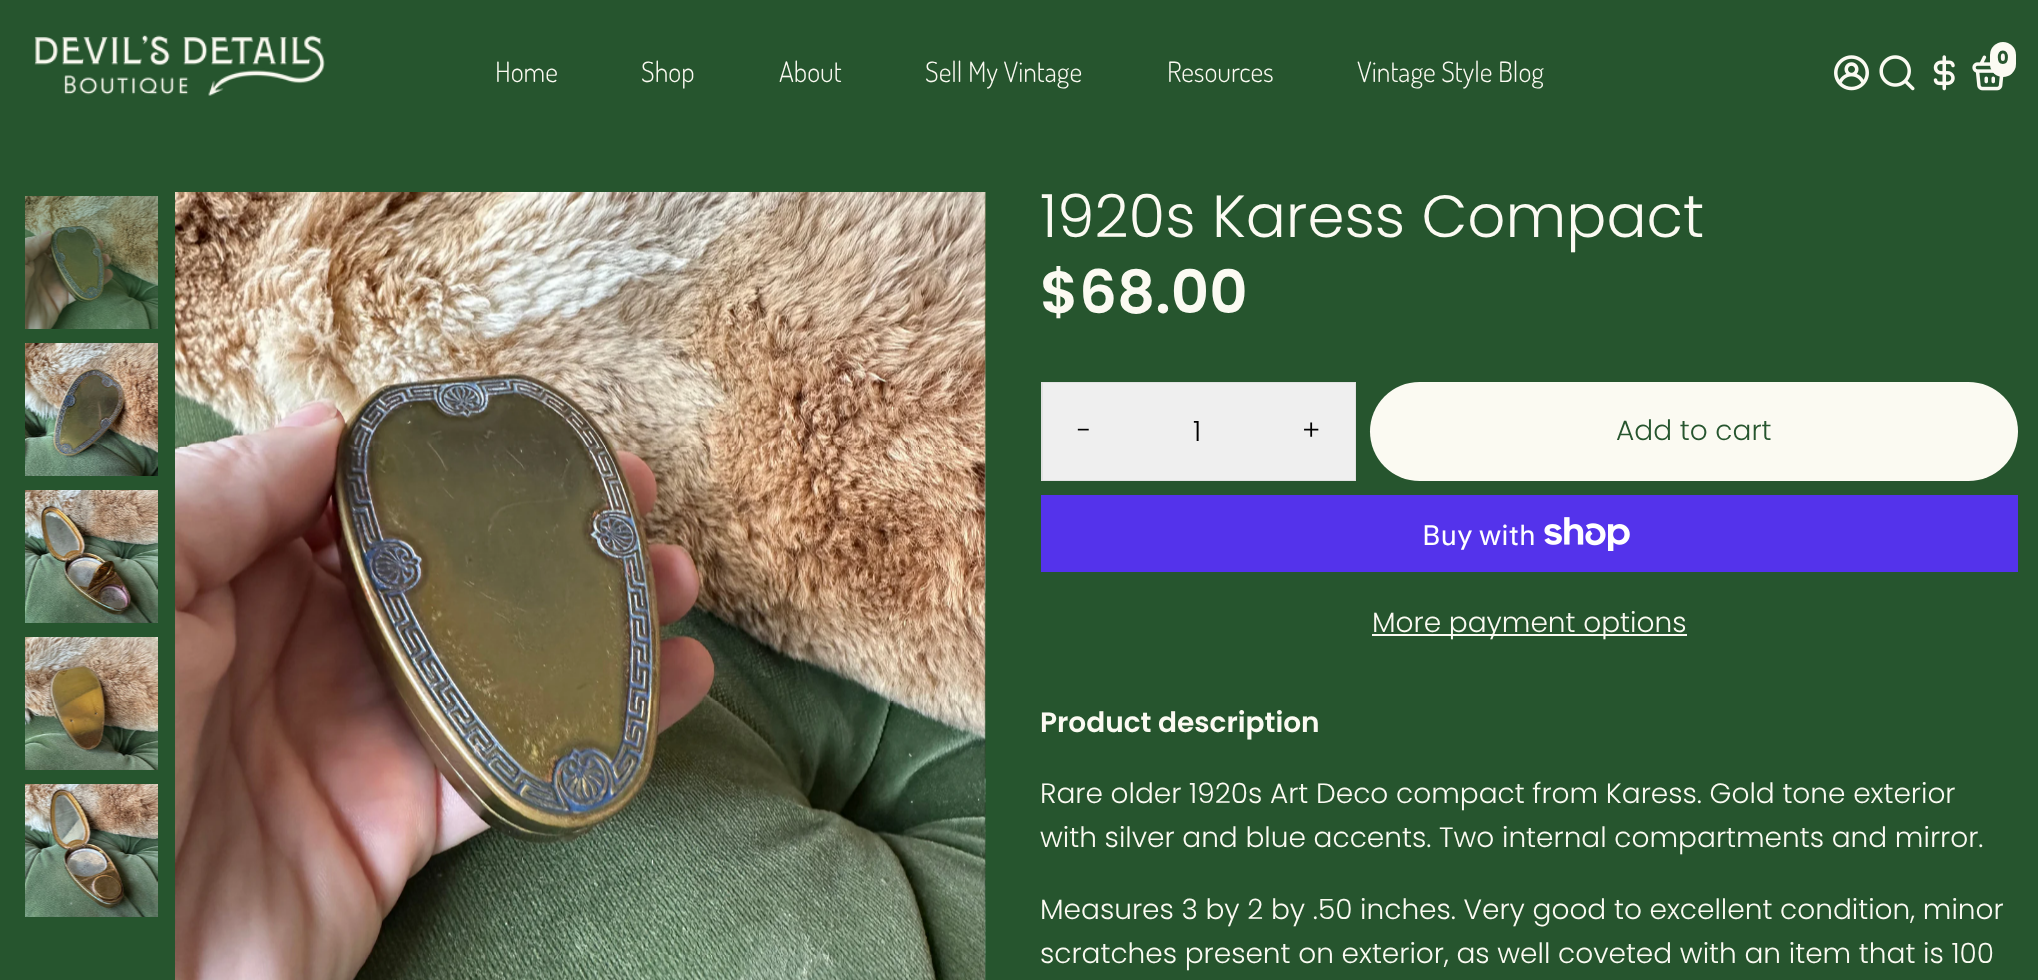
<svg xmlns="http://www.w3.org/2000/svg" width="2038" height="980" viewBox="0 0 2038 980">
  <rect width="100%" height="100%" fill="#26552e"/>
  <image x="34" y="35" width="291" height="61" href="img1.png"/>
  <image x="1834" y="55" width="35" height="36" href="img2.png"/>
  <image x="1879" y="55" width="36" height="36" href="img3.png"/>
  <image x="1933" y="55" width="22" height="36" href="img4.png"/>
  <image x="1972" y="55" width="32" height="36" href="img5.png"/>
  <rect x="1990" y="42" width="26" height="35" rx="13" fill="#fbfaf2"/>
  <text x="1997" y="64" font-family="Poppins" font-size="18" font-weight="bold" fill="#26552e">0</text>
  <text x="495" y="82" font-family="Dosis" font-size="28" font-weight="300" fill="#fbfaf2">Home</text>
  <text x="641" y="82" font-family="Dosis" font-size="28" font-weight="300" fill="#fbfaf2">Shop</text>
  <text x="779" y="82" font-family="Dosis" font-size="28" font-weight="300" fill="#fbfaf2">About</text>
  <text x="925" y="82" font-family="Dosis" font-size="28" font-weight="300" fill="#fbfaf2">Sell My Vintage</text>
  <text x="1167" y="82" font-family="Dosis" font-size="28" font-weight="300" fill="#fbfaf2">Resources</text>
  <text x="1357" y="82" font-family="Dosis" font-size="28" font-weight="300" fill="#fbfaf2">Vintage Style Blog</text>
  <image x="25" y="196" width="133" height="133" href="img6.png"/>
  <image x="25" y="343" width="133" height="133" href="img7.png"/>
  <image x="25" y="490" width="133" height="133" href="img8.png"/>
  <image x="25" y="637" width="133" height="133" href="img9.png"/>
  <image x="25" y="784" width="133" height="133" href="img10.png"/>
  <image x="175" y="192" width="811" height="788" href="img11.png"/>
  <image x="984" y="192" width="2" height="788" href="img12.png"/>
  <text x="1040" y="237" font-family="Poppins" font-size="59.5" font-weight="300" fill="#fbfaf2">1920s Karess Compact</text>
  <text x="1040" y="313" font-family="Poppins" font-size="59.5" font-weight="600" fill="#fbfaf2">$68.00</text>
  <rect x="1042" y="383" width="313" height="97" fill="none" stroke="#e2e2e2" stroke-width="2"/>
  <rect x="1043" y="383" width="312" height="97" fill="#efefef"/>
  <text x="1077" y="440" font-family="Poppins" font-size="28" font-weight="300" fill="#000000">-</text>
  <text x="1193" y="441" font-family="Poppins" font-size="28" font-weight="300" fill="#000000">1</text>
  <text x="1302" y="440" font-family="Poppins" font-size="28" font-weight="300" fill="#000000">+</text>
  <rect x="1370" y="382" width="648" height="99" rx="49.5" fill="#fbfaf2"/>
  <text x="1616" y="440" font-family="Poppins" font-size="28" font-weight="300" fill="#26552e">Add to cart</text>
  <rect x="1041" y="495" width="977" height="77" fill="#5433eb"/>
  <text x="1422" y="545" font-family="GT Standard" font-size="28" fill="#ffffff">Buy with</text>
  <image x="1544" y="517" width="86" height="34" href="img13.png"/>
  <rect x="1372" y="634" width="315" height="2" fill="#fbfaf2"/>
  <text x="1372" y="632" font-family="Poppins" font-size="28" font-weight="300" fill="#fbfaf2">More payment options</text>
  <text x="1040" y="732" font-family="Poppins" font-size="28" font-weight="600" fill="#fbfaf2">Product description</text>
  <text x="1040" y="803" font-family="Poppins" font-size="28" font-weight="300" fill="#fbfaf2">Rare older 1920s Art Deco compact from Karess. Gold tone exterior</text>
  <text x="1040" y="847" font-family="Poppins" font-size="28" font-weight="300" fill="#fbfaf2">with silver and blue accents. Two internal compartments and mirror.</text>
  <text x="1040" y="919" font-family="Poppins" font-size="28" font-weight="300" fill="#fbfaf2">Measures 3 by 2 by .50 inches. Very good to excellent condition, minor</text>
  <text x="1040" y="963" font-family="Poppins" font-size="28" font-weight="300" fill="#fbfaf2">scratches present on exterior, as well coveted with an item that is 100</text>
</svg>
